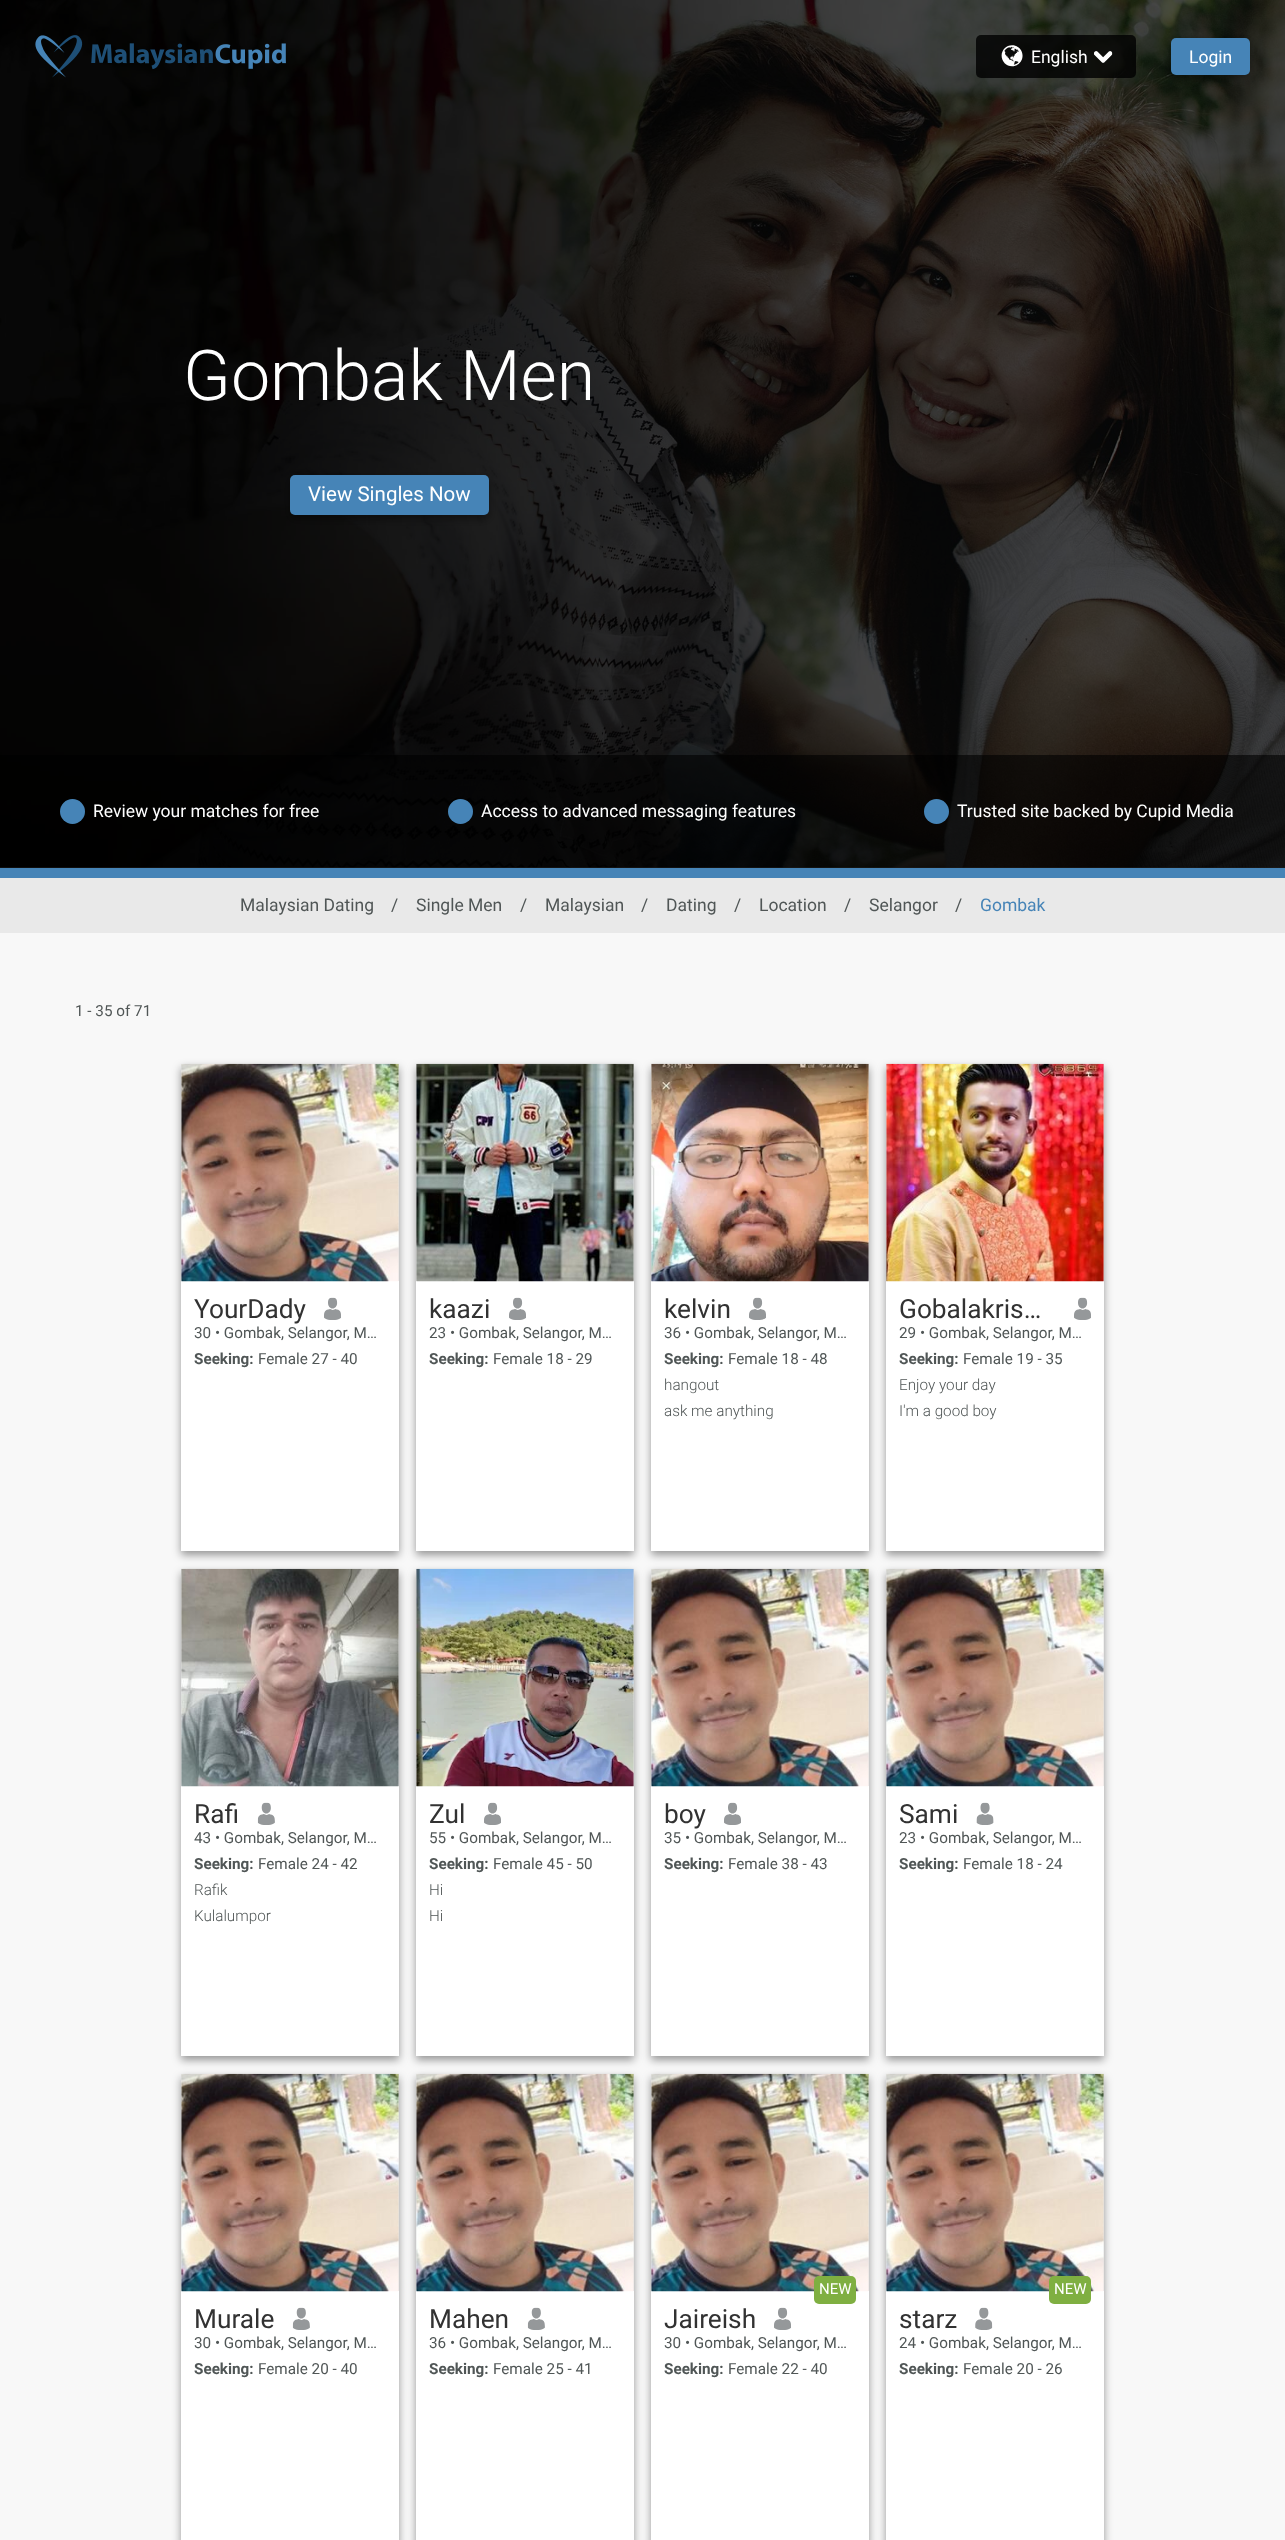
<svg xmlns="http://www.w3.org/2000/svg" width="1285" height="2540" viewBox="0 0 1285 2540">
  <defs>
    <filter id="blur1" x="-50%" y="-200%" width="200%" height="500%"><feGaussianBlur stdDeviation="4"/></filter>
  </defs>
  <rect width="100%" height="100%" fill="#f8f8f8"/>
  <rect x="0" y="867" width="1285" height="1" fill="#4d4d4d"/>
  <image x="0" y="0" width="1285" height="868" href="img5.png"/>
  <image x="35" y="35" width="48" height="43" href="img1.png"/>
  <image x="91" y="43" width="195" height="27" href="img2.png"/>
  <rect x="976" y="35" width="160" height="43" rx="5" fill="#000000" fill-opacity="0.8"/>
  <image x="1001" y="45" width="22" height="22" href="img3.png"/>
  <text x="1031" y="63" font-family="Roboto" font-size="17.5" fill="#ffffff">English</text>
  <image x="1094" y="51" width="19" height="12" href="img4.png"/>
  <rect x="1171" y="41" width="79" height="38" rx="5" fill="#000000" fill-opacity="0.4" filter="url(#blur1)"/>
  <rect x="1171" y="38" width="79" height="37" rx="5" fill="#4684b7"/>
  <text x="1189" y="63" font-family="Roboto" font-size="17.5" fill="#ffffff">Login</text>
  <text x="183" y="400" font-family="Roboto" font-size="70" font-weight="300" fill="#ffffff">Gombak Men</text>
  <rect x="290" y="479" width="199" height="40" rx="5" fill="#000000" fill-opacity="0.4" filter="url(#blur1)"/>
  <rect x="290" y="475" width="199" height="40" rx="5" fill="#4684b7"/>
  <text x="308" y="501" font-family="Roboto" font-size="20.5" fill="#ffffff">View Singles Now</text>
  <rect x="0" y="755" width="1285" height="113" fill="#000000" fill-opacity="0.6"/>
  <circle cx="72.5" cy="811.5" r="12.5" fill="#4684b7"/>
  <text x="93" y="817" font-family="Roboto" font-size="17.5" fill="#ffffff">Review your matches for free</text>
  <circle cx="460.5" cy="811.5" r="12.5" fill="#4684b7"/>
  <text x="481" y="817" font-family="Roboto" font-size="17.5" fill="#ffffff">Access to advanced messaging features</text>
  <circle cx="936.5" cy="811.5" r="12.5" fill="#4684b7"/>
  <text x="957" y="817" font-family="Roboto" font-size="17.5" fill="#ffffff">Trusted site backed by Cupid Media</text>
  <rect x="0" y="868" width="1285" height="10" fill="#4684b7"/>
  <rect x="0" y="878" width="1285" height="55" fill="#e9e9e9"/>
  <text x="240" y="911" font-family="Roboto" font-size="17.5" fill="#505656">Malaysian Dating</text>
  <text x="391" y="911" font-family="Roboto" font-size="17.5" fill="#505656">/</text>
  <text x="416" y="911" font-family="Roboto" font-size="17.5" fill="#505656">Single Men</text>
  <text x="520" y="911" font-family="Roboto" font-size="17.5" fill="#505656">/</text>
  <text x="545" y="911" font-family="Roboto" font-size="17.5" fill="#505656">Malaysian</text>
  <text x="641" y="911" font-family="Roboto" font-size="17.5" fill="#505656">/</text>
  <text x="666" y="911" font-family="Roboto" font-size="17.5" fill="#505656">Dating</text>
  <text x="734" y="911" font-family="Roboto" font-size="17.5" fill="#505656">/</text>
  <text x="759" y="911" font-family="Roboto" font-size="17.5" fill="#505656">Location</text>
  <text x="844" y="911" font-family="Roboto" font-size="17.5" fill="#505656">/</text>
  <text x="869" y="911" font-family="Roboto" font-size="17.5" fill="#505656">Selangor</text>
  <text x="955" y="911" font-family="Roboto" font-size="17.5" fill="#505656">/</text>
  <text x="980" y="911" font-family="Roboto" font-size="17.5" fill="#4684b7">Gombak</text>
  <text x="75" y="1016" font-family="Roboto" font-size="15.25" fill="#505656">1 - 35 of 71</text>
  <rect x="181" y="1068" width="218" height="487" fill="#000000" fill-opacity="0.4" filter="url(#blur1)"/>
  <rect x="181" y="1281" width="218" height="270" fill="#ffffff"/>
  <rect x="181" y="1064" width="218" height="217" fill="#e0e0e0"/>
  <image x="181" y="1063" width="218" height="219" href="img6.png"/>
  <text x="194" y="1318" font-family="Roboto" font-size="26.25" fill="#323232">YourDady</text>
  <image x="324" y="1297" width="17" height="23" href="img7.png"/>
  <text x="194" y="1338" font-family="Roboto" font-size="15.25" fill="#505656">30 • Gombak, Selangor, M…</text>
  <text x="194" y="1364" font-family="Roboto" font-size="15.25" font-weight="bold" fill="#505656">Seeking:</text>
  <text x="258" y="1364" font-family="Roboto" font-size="15.25" fill="#505656">Female 27 - 40</text>
  <rect x="416" y="1068" width="218" height="487" fill="#000000" fill-opacity="0.4" filter="url(#blur1)"/>
  <rect x="416" y="1281" width="218" height="270" fill="#ffffff"/>
  <rect x="416" y="1064" width="218" height="217" fill="#e0e0e0"/>
  <image x="416" y="1063" width="218" height="219" href="img8.png"/>
  <text x="429" y="1318" font-family="Roboto" font-size="26.25" fill="#323232">kaazi</text>
  <image x="509" y="1297" width="17" height="23" href="img7.png"/>
  <text x="429" y="1338" font-family="Roboto" font-size="15.25" fill="#505656">23 • Gombak, Selangor, M…</text>
  <text x="429" y="1364" font-family="Roboto" font-size="15.25" font-weight="bold" fill="#505656">Seeking:</text>
  <text x="493" y="1364" font-family="Roboto" font-size="15.25" fill="#505656">Female 18 - 29</text>
  <rect x="651" y="1068" width="218" height="487" fill="#000000" fill-opacity="0.4" filter="url(#blur1)"/>
  <rect x="651" y="1281" width="218" height="270" fill="#ffffff"/>
  <rect x="651" y="1064" width="218" height="217" fill="#e0e0e0"/>
  <image x="651" y="1063" width="218" height="219" href="img9.png"/>
  <text x="664" y="1318" font-family="Roboto" font-size="26.25" fill="#323232">kelvin</text>
  <image x="749" y="1297" width="17" height="23" href="img10.png"/>
  <text x="664" y="1338" font-family="Roboto" font-size="15.25" fill="#505656">36 • Gombak, Selangor, M…</text>
  <text x="664" y="1364" font-family="Roboto" font-size="15.25" font-weight="bold" fill="#505656">Seeking:</text>
  <text x="728" y="1364" font-family="Roboto" font-size="15.25" fill="#505656">Female 18 - 48</text>
  <text x="664" y="1390" font-family="Roboto" font-size="15.25" font-weight="300" fill="#505656">hangout</text>
  <text x="664" y="1416" font-family="Roboto" font-size="15.25" font-weight="300" fill="#505656">ask me anything</text>
  <rect x="886" y="1068" width="218" height="487" fill="#000000" fill-opacity="0.4" filter="url(#blur1)"/>
  <rect x="886" y="1281" width="218" height="270" fill="#ffffff"/>
  <rect x="886" y="1064" width="218" height="217" fill="#e0e0e0"/>
  <image x="886" y="1063" width="218" height="219" href="img11.png"/>
  <text x="899" y="1318" font-family="Roboto" font-size="26.25" fill="#323232">Gobalakris…</text>
  <image x="1074" y="1297" width="17" height="23" href="img7.png"/>
  <text x="899" y="1338" font-family="Roboto" font-size="15.25" fill="#505656">29 • Gombak, Selangor, M…</text>
  <text x="899" y="1364" font-family="Roboto" font-size="15.25" font-weight="bold" fill="#505656">Seeking:</text>
  <text x="963" y="1364" font-family="Roboto" font-size="15.25" fill="#505656">Female 19 - 35</text>
  <text x="899" y="1390" font-family="Roboto" font-size="15.25" font-weight="300" fill="#505656">Enjoy your day</text>
  <text x="899" y="1416" font-family="Roboto" font-size="15.25" font-weight="300" fill="#505656">I'm a good boy</text>
  <rect x="181" y="1573" width="218" height="487" fill="#000000" fill-opacity="0.4" filter="url(#blur1)"/>
  <rect x="181" y="1786" width="218" height="270" fill="#ffffff"/>
  <rect x="181" y="1569" width="218" height="217" fill="#e0e0e0"/>
  <image x="181" y="1568" width="218" height="219" href="img12.png"/>
  <text x="194" y="1823" font-family="Roboto" font-size="26.25" fill="#323232">Rafi</text>
  <image x="257" y="1802" width="18" height="23" href="img13.png"/>
  <text x="194" y="1843" font-family="Roboto" font-size="15.25" fill="#505656">43 • Gombak, Selangor, M…</text>
  <text x="194" y="1869" font-family="Roboto" font-size="15.25" font-weight="bold" fill="#505656">Seeking:</text>
  <text x="258" y="1869" font-family="Roboto" font-size="15.25" fill="#505656">Female 24 - 42</text>
  <text x="194" y="1895" font-family="Roboto" font-size="15.25" font-weight="300" fill="#505656">Rafik</text>
  <text x="194" y="1921" font-family="Roboto" font-size="15.25" font-weight="300" fill="#505656">Kulalumpor</text>
  <rect x="416" y="1573" width="218" height="487" fill="#000000" fill-opacity="0.4" filter="url(#blur1)"/>
  <rect x="416" y="1786" width="218" height="270" fill="#ffffff"/>
  <rect x="416" y="1569" width="218" height="217" fill="#e0e0e0"/>
  <image x="416" y="1568" width="218" height="219" href="img14.png"/>
  <text x="429" y="1823" font-family="Roboto" font-size="26.25" fill="#323232">Zul</text>
  <image x="484" y="1802" width="17" height="23" href="img7.png"/>
  <text x="429" y="1843" font-family="Roboto" font-size="15.25" fill="#505656">55 • Gombak, Selangor, M…</text>
  <text x="429" y="1869" font-family="Roboto" font-size="15.25" font-weight="bold" fill="#505656">Seeking:</text>
  <text x="493" y="1869" font-family="Roboto" font-size="15.25" fill="#505656">Female 45 - 50</text>
  <text x="429" y="1895" font-family="Roboto" font-size="15.25" font-weight="300" fill="#505656">Hi</text>
  <text x="429" y="1921" font-family="Roboto" font-size="15.25" font-weight="300" fill="#505656">Hi</text>
  <rect x="651" y="1573" width="218" height="487" fill="#000000" fill-opacity="0.4" filter="url(#blur1)"/>
  <rect x="651" y="1786" width="218" height="270" fill="#ffffff"/>
  <rect x="651" y="1569" width="218" height="217" fill="#e0e0e0"/>
  <image x="651" y="1568" width="218" height="219" href="img6.png"/>
  <text x="664" y="1823" font-family="Roboto" font-size="26.25" fill="#323232">boy</text>
  <image x="724" y="1802" width="17" height="23" href="img7.png"/>
  <text x="664" y="1843" font-family="Roboto" font-size="15.25" fill="#505656">35 • Gombak, Selangor, M…</text>
  <text x="664" y="1869" font-family="Roboto" font-size="15.25" font-weight="bold" fill="#505656">Seeking:</text>
  <text x="728" y="1869" font-family="Roboto" font-size="15.25" fill="#505656">Female 38 - 43</text>
  <rect x="886" y="1573" width="218" height="487" fill="#000000" fill-opacity="0.4" filter="url(#blur1)"/>
  <rect x="886" y="1786" width="218" height="270" fill="#ffffff"/>
  <rect x="886" y="1569" width="218" height="217" fill="#e0e0e0"/>
  <image x="886" y="1568" width="218" height="219" href="img15.png"/>
  <text x="899" y="1823" font-family="Roboto" font-size="26.25" fill="#323232">Sami</text>
  <image x="976" y="1802" width="18" height="23" href="img16.png"/>
  <text x="899" y="1843" font-family="Roboto" font-size="15.25" fill="#505656">23 • Gombak, Selangor, M…</text>
  <text x="899" y="1869" font-family="Roboto" font-size="15.25" font-weight="bold" fill="#505656">Seeking:</text>
  <text x="963" y="1869" font-family="Roboto" font-size="15.25" fill="#505656">Female 18 - 24</text>
  <rect x="181" y="2078" width="218" height="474" fill="#000000" fill-opacity="0.4" filter="url(#blur1)"/>
  <rect x="181" y="2291" width="218" height="249" fill="#ffffff"/>
  <rect x="181" y="2074" width="218" height="217" fill="#e0e0e0"/>
  <image x="181" y="2073" width="218" height="219" href="img17.png"/>
  <text x="194" y="2328" font-family="Roboto" font-size="26.25" fill="#323232">Murale</text>
  <image x="292" y="2307" width="18" height="23" href="img13.png"/>
  <text x="194" y="2348" font-family="Roboto" font-size="15.25" fill="#505656">30 • Gombak, Selangor, M…</text>
  <text x="194" y="2374" font-family="Roboto" font-size="15.25" font-weight="bold" fill="#505656">Seeking:</text>
  <text x="258" y="2374" font-family="Roboto" font-size="15.25" fill="#505656">Female 20 - 40</text>
  <rect x="416" y="2078" width="218" height="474" fill="#000000" fill-opacity="0.4" filter="url(#blur1)"/>
  <rect x="416" y="2291" width="218" height="249" fill="#ffffff"/>
  <rect x="416" y="2074" width="218" height="217" fill="#e0e0e0"/>
  <image x="416" y="2073" width="218" height="219" href="img17.png"/>
  <text x="429" y="2328" font-family="Roboto" font-size="26.25" fill="#323232">Mahen</text>
  <image x="527" y="2307" width="18" height="23" href="img13.png"/>
  <text x="429" y="2348" font-family="Roboto" font-size="15.25" fill="#505656">36 • Gombak, Selangor, M…</text>
  <text x="429" y="2374" font-family="Roboto" font-size="15.25" font-weight="bold" fill="#505656">Seeking:</text>
  <text x="493" y="2374" font-family="Roboto" font-size="15.25" fill="#505656">Female 25 - 41</text>
  <rect x="651" y="2078" width="218" height="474" fill="#000000" fill-opacity="0.4" filter="url(#blur1)"/>
  <rect x="651" y="2291" width="218" height="249" fill="#ffffff"/>
  <rect x="651" y="2074" width="218" height="217" fill="#e0e0e0"/>
  <image x="651" y="2073" width="218" height="219" href="img17.png"/>
  <rect x="814" y="2276" width="42" height="28" rx="5" fill="#7faf41"/>
  <text x="819" y="2294" font-family="Roboto" font-size="15" fill="#ffffff">NEW</text>
  <text x="664" y="2328" font-family="Roboto" font-size="26.25" fill="#323232">Jaireish</text>
  <image x="774" y="2307" width="17" height="23" href="img7.png"/>
  <text x="664" y="2348" font-family="Roboto" font-size="15.25" fill="#505656">30 • Gombak, Selangor, M…</text>
  <text x="664" y="2374" font-family="Roboto" font-size="15.25" font-weight="bold" fill="#505656">Seeking:</text>
  <text x="728" y="2374" font-family="Roboto" font-size="15.25" fill="#505656">Female 22 - 40</text>
  <rect x="886" y="2078" width="218" height="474" fill="#000000" fill-opacity="0.4" filter="url(#blur1)"/>
  <rect x="886" y="2291" width="218" height="249" fill="#ffffff"/>
  <rect x="886" y="2074" width="218" height="217" fill="#e0e0e0"/>
  <image x="886" y="2073" width="218" height="219" href="img18.png"/>
  <rect x="1049" y="2276" width="42" height="28" rx="5" fill="#7faf41"/>
  <text x="1054" y="2294" font-family="Roboto" font-size="15" fill="#ffffff">NEW</text>
  <text x="899" y="2328" font-family="Roboto" font-size="26.25" fill="#323232">starz</text>
  <image x="975" y="2307" width="18" height="23" href="img19.png"/>
  <text x="899" y="2348" font-family="Roboto" font-size="15.25" fill="#505656">24 • Gombak, Selangor, M…</text>
  <text x="899" y="2374" font-family="Roboto" font-size="15.25" font-weight="bold" fill="#505656">Seeking:</text>
  <text x="963" y="2374" font-family="Roboto" font-size="15.25" fill="#505656">Female 20 - 26</text>
</svg>
